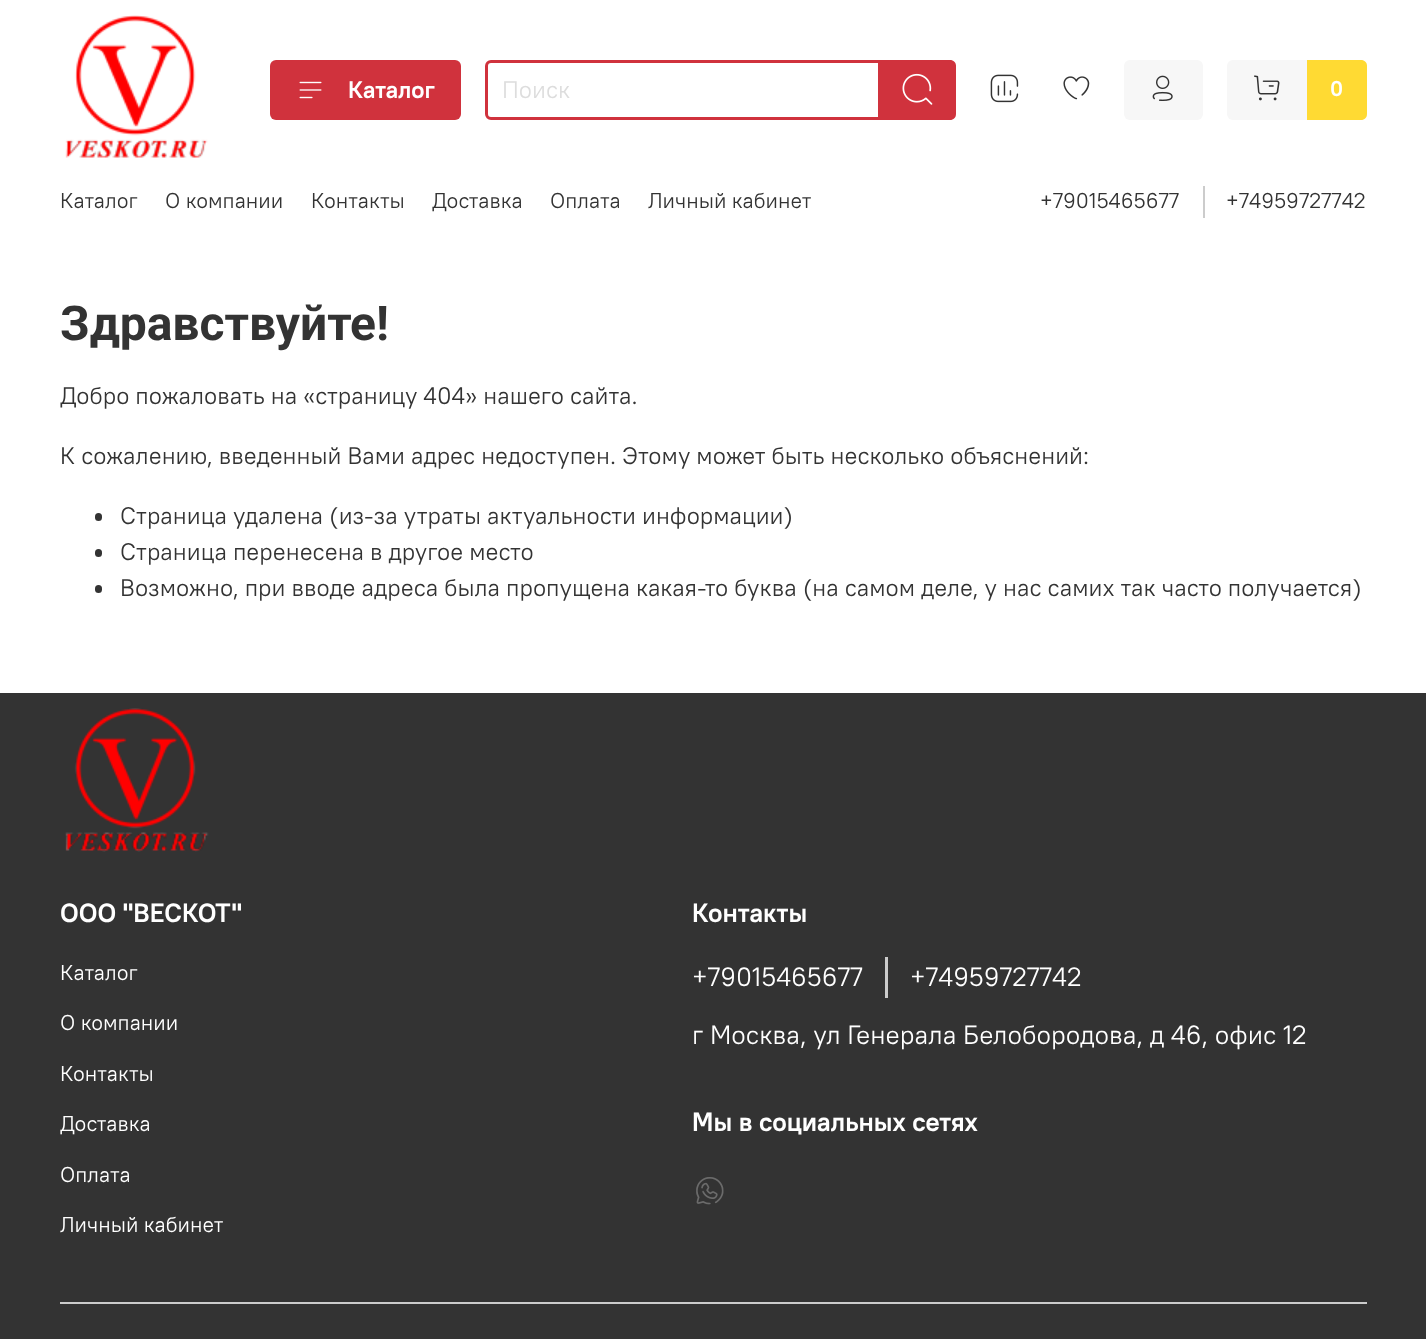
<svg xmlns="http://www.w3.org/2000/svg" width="1426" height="1339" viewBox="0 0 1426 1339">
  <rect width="100%" height="100%" fill="#ffffff"/>
  <image x="65" y="15" width="143" height="143" href="img1.png"/>
  <rect x="270" y="60" width="191" height="60" rx="6" fill="#d0323d"/>
  <image x="299" y="81" width="23" height="18" href="img2.png"/>
  <text x="348" y="98" font-family="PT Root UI" font-size="24" font-weight="bold" fill="#ffffff">Каталог</text>
  <path d="M491 61.5H879.5V118.5H491C488.5 118.5 486.5 116.5 486.5 114V66C486.5 63.5 488.5 61.5 491 61.5Z" fill="none" stroke="#d0323d" stroke-width="3"/>
  <text x="502" y="98" font-family="PT Root UI" font-size="24" fill="#dddddd">Поиск</text>
  <path d="M881 60H950C953.5 60 956 62.5 956 66V114C956 117.5 953.5 120 950 120H881Z" fill="#d0323d"/>
  <image x="902" y="73" width="31" height="32" href="img3.png"/>
  <image x="990" y="74" width="29" height="29" href="img4.png"/>
  <image x="1063" y="76" width="27" height="24" href="img5.png"/>
  <rect x="1124" y="60" width="79" height="60" rx="6" fill="#f7f7f7"/>
  <image x="1152" y="75" width="21" height="26" href="img6.png"/>
  <rect x="1227" y="60" width="140" height="60" rx="6" fill="#f7f7f7"/>
  <image x="1254" y="75" width="26" height="26" href="img7.png"/>
  <path d="M1307 60H1361C1364.5 60 1367 62.5 1367 66V114C1367 117.5 1364.5 120 1361 120H1307Z" fill="#ffda33"/>
  <text x="1330" y="96" font-family="PT Root UI" font-size="21.5" font-weight="bold" fill="#ffffff">0</text>
  <text x="60" y="208" font-family="PT Root UI" font-size="21.5" fill="#333333">Каталог</text>
  <text x="165" y="208" font-family="PT Root UI" font-size="21.5" fill="#333333">О компании</text>
  <text x="311" y="208" font-family="PT Root UI" font-size="21.5" fill="#333333">Контакты</text>
  <text x="432" y="208" font-family="PT Root UI" font-size="21.5" fill="#333333">Доставка</text>
  <text x="550" y="208" font-family="PT Root UI" font-size="21.5" fill="#333333">Оплата</text>
  <text x="648" y="208" font-family="PT Root UI" font-size="21.5" fill="#333333">Личный кабинет</text>
  <rect x="1203" y="186" width="2" height="32" fill="#cccccc"/>
  <text x="1040" y="208" font-family="PT Root UI" font-size="21.5" fill="#333333">+79015465677</text>
  <text x="1226" y="208" font-family="PT Root UI" font-size="21.5" fill="#333333">+74959727742</text>
  <text x="60" y="340" font-family="Roboto" font-size="48" font-weight="bold" fill="#333333">Здравствуйте!</text>
  <text x="60" y="404" font-family="PT Root UI" font-size="24" fill="#333333">Добро пожаловать на «страницу 404» нашего сайта.</text>
  <text x="60" y="464" font-family="PT Root UI" font-size="24" fill="#333333">К сожалению, введенный Вами адрес недоступен. Этому может быть несколько объяснений:</text>
  <rect x="95" y="513" width="7" height="8" rx="3.5" fill="#333333"/>
  <text x="120" y="524" font-family="PT Root UI" font-size="24" fill="#333333">Страница удалена (из-за утраты актуальности информации)</text>
  <rect x="95" y="549" width="7" height="8" rx="3.5" fill="#333333"/>
  <text x="120" y="560" font-family="PT Root UI" font-size="24" fill="#333333">Страница перенесена в другое место</text>
  <rect x="95" y="585" width="7" height="8" rx="3.5" fill="#333333"/>
  <text x="120" y="596" font-family="PT Root UI" font-size="24" fill="#333333">Возможно, при вводе адреса была пропущена какая-то буква (на самом деле, у нас самих так часто получается)</text>
  <rect x="0" y="693" width="1426" height="646" fill="#333333"/>
  <image x="65" y="708" width="144" height="144" href="img8.png"/>
  <text x="60" y="922" font-family="PT Root UI" font-size="26.4" font-weight="bold" fill="#ffffff">ООО "ВЕСКОТ"</text>
  <text x="60" y="980" font-family="PT Root UI" font-size="21.5" fill="#ffffff">Каталог</text>
  <text x="60" y="1030" font-family="PT Root UI" font-size="21.5" fill="#ffffff">О компании</text>
  <text x="60" y="1081" font-family="PT Root UI" font-size="21.5" fill="#ffffff">Контакты</text>
  <text x="60" y="1131" font-family="PT Root UI" font-size="21.5" fill="#ffffff">Доставка</text>
  <text x="60" y="1182" font-family="PT Root UI" font-size="21.5" fill="#ffffff">Оплата</text>
  <text x="60" y="1232" font-family="PT Root UI" font-size="21.5" fill="#ffffff">Личный кабинет</text>
  <text x="692" y="922" font-family="PT Root UI" font-size="26.4" font-weight="bold" fill="#ffffff">Контакты</text>
  <rect x="885" y="957" width="3" height="41" fill="#cccccc"/>
  <text x="692" y="986" font-family="PT Root UI" font-size="26.4" fill="#ffffff">+79015465677</text>
  <text x="910" y="986" font-family="PT Root UI" font-size="26.4" fill="#ffffff">+74959727742</text>
  <text x="692" y="1044" font-family="PT Root UI" font-size="26.4" fill="#ffffff">г Москва, ул Генерала Белобородова, д 46, офис 12</text>
  <text x="692" y="1131" font-family="PT Root UI" font-size="26.4" font-weight="bold" fill="#ffffff">Мы в социальных сетях</text>
  <image x="696" y="1177" width="28" height="28" href="img9.png"/>
  <rect x="60" y="1302" width="1307" height="2" fill="#cccccc"/>
</svg>
